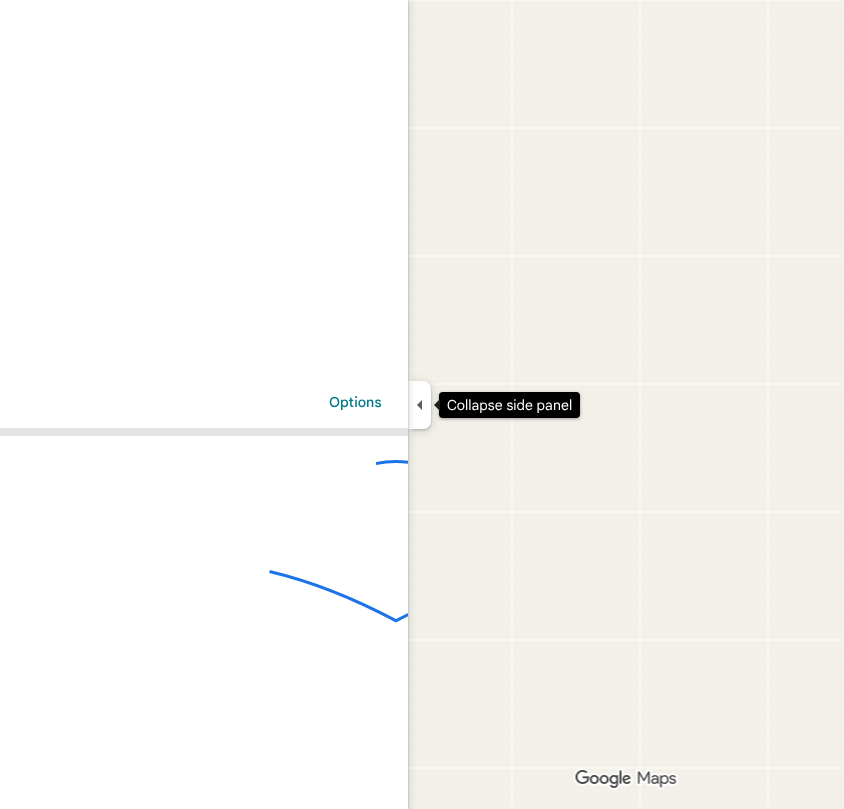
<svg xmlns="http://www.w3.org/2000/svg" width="844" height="809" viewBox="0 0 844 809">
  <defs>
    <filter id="blur1" x="-50%" y="-200%" width="200%" height="500%"><feGaussianBlur stdDeviation="3"/></filter>
    <filter id="blur2" x="-50%" y="-200%" width="200%" height="500%"><feGaussianBlur stdDeviation="1"/></filter>
    <clipPath id="clip1"><rect x="376" y="460" width="32" height="349"/></clipPath>
    <clipPath id="clip2"><rect x="192" y="460" width="204" height="349"/></clipPath>
    <clipPath id="clip3"><rect x="396" y="460" width="12" height="349"/></clipPath>
    <filter id="blur3" x="-50%" y="-200%" width="200%" height="500%"><feGaussianBlur stdDeviation="1.5"/></filter>
  </defs>
  <rect width="100%" height="100%" fill="#f2f0e8"/>
  <image x="408" y="0" width="436" height="809" href="img1.png"/>
  <image x="573" y="768" width="106" height="22" href="img2.png"/>
  <rect x="406" y="381" width="27" height="52" rx="10" fill="#3c4043" fill-opacity="0.15" filter="url(#blur1)"/>
  <rect x="408" y="382" width="23" height="48" rx="8" fill="#3c4043" fill-opacity="0.3" filter="url(#blur2)"/>
  <path d="M408 381H423C427.5 381 431 384.5 431 389V421C431 425.5 427.5 429 423 429H408Z" fill="#ffffff"/>
  <path d="M422 410L417 405L422 400Z" fill="#5e5e5e"/>
  <rect x="-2" y="0" width="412" height="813" fill="#3c4043" fill-opacity="0.15" filter="url(#blur1)"/>
  <rect x="0" y="1" width="408" height="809" fill="#3c4043" fill-opacity="0.3" filter="url(#blur2)"/>
  <rect x="0" y="0" width="408" height="809" fill="#ffffff"/>
  <rect x="0" y="428" width="408" height="8" fill="#e3e3e3"/>
  <text x="329" y="407" font-family="Google Sans" font-size="14" font-weight="500" letter-spacing="0.1" fill="#007b8b">Options</text>
  <g clip-path="url(#clip1)">
    <path d="M253 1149.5C215 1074 193.5 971.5 193.5 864.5C193.5 757.5 215 655 253 579.5C291 504 342.5 461.5 396 461.5C449.5 461.5 501 504 539 579.5C577 655 598.5 757.5 598.5 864.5C598.5 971.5 577 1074 539 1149.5" fill="none" stroke="#1a73e8" stroke-width="3"/>
  </g>
  <g clip-path="url(#clip2)">
    <path d="M269.5 571.5C352 591 444.5 640.5 526 709.5C608 778 673 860.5 706.5 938C740 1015.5 739 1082.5 704.5 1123.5C670 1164.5 604.5 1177 522.5 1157.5" fill="none" stroke="#1a73e8" stroke-width="3"/>
  </g>
  <g clip-path="url(#clip3)">
    <path d="M269.5 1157.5C187.5 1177 122 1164.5 87.5 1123.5C53 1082.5 52 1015.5 85.5 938C119 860.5 184 778 266 709.5C347.5 640.5 440 591 522.5 571.5" fill="none" stroke="#1a73e8" stroke-width="3"/>
  </g>
  <rect x="438" y="392" width="143" height="28" rx="5" fill="#3c4043" fill-opacity="0.15" filter="url(#blur3)"/>
  <rect x="439" y="393" width="141" height="26" rx="4" fill="#3c4043" fill-opacity="0.3" filter="url(#blur2)"/>
  <rect x="439" y="392" width="141" height="26" rx="4" fill="#000000"/>
  <path d="M440 399V411L434 405Z" fill="#1f1f1f"/>
  <text x="447" y="410" font-family="Google Sans" font-size="14" letter-spacing="0.1" fill="#ffffff">Collapse side panel</text>
</svg>
